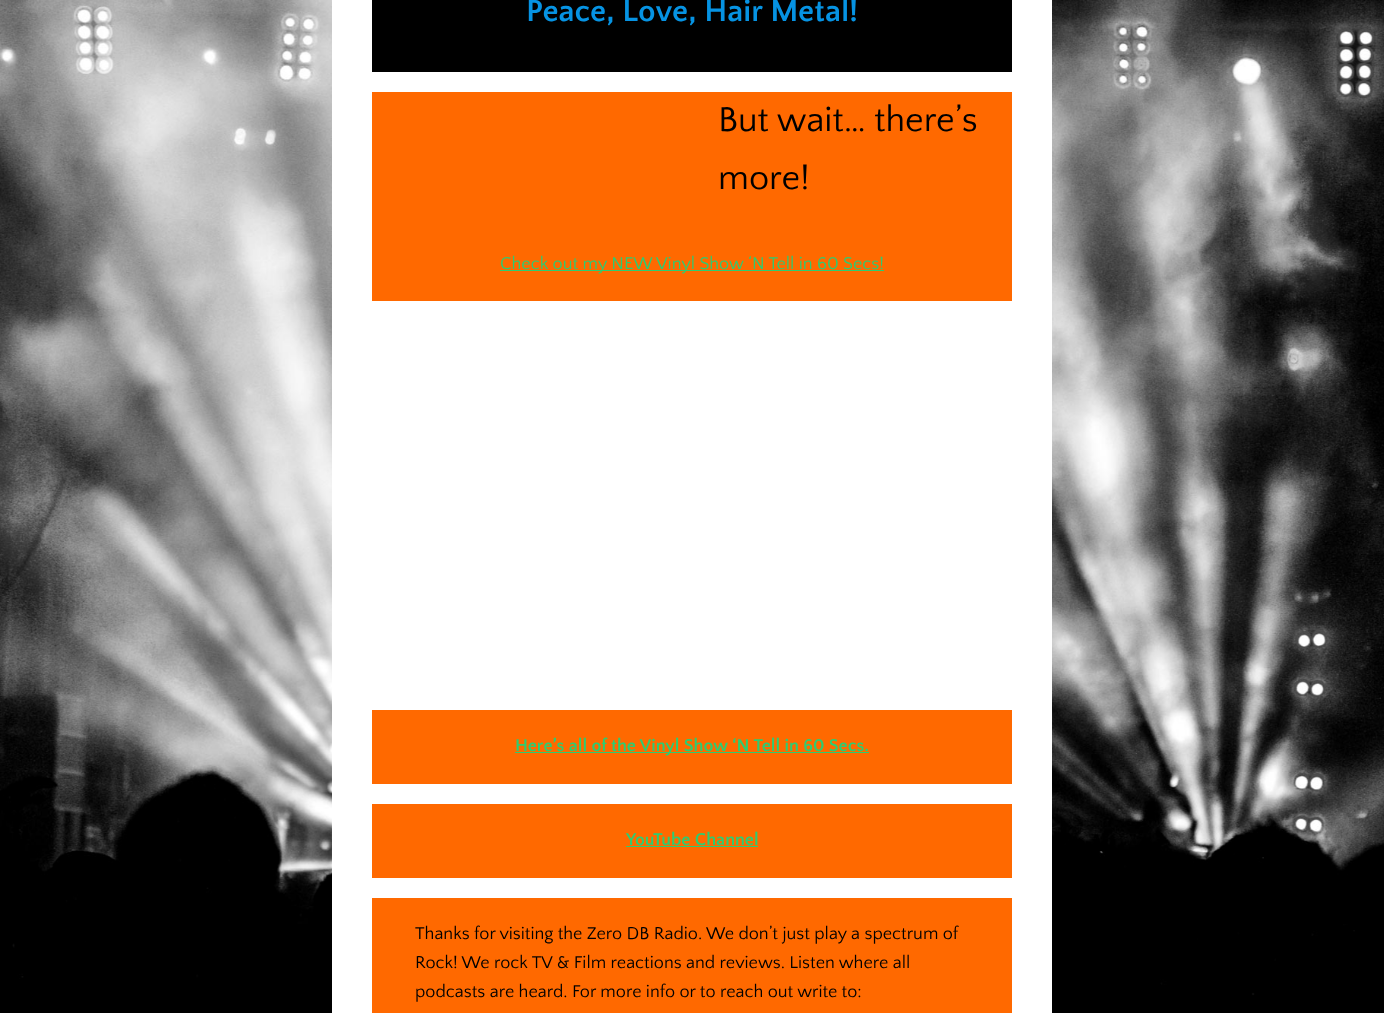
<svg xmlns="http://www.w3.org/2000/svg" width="1384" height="1013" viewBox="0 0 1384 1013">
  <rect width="100%" height="100%" fill="#ffffff"/>
  <image x="0" y="0" width="1384" height="1013" href="img1.png"/>
  <rect x="332" y="0" width="720" height="1013" fill="#ffffff"/>
  <rect x="372" y="0" width="640" height="72" fill="#000000"/>
  <text x="526" y="21" font-family="Quattrocento Sans" font-size="32" font-weight="bold" fill="#0693e3">Peace, Love, Hair Metal!</text>
  <rect x="372" y="92" width="640" height="209" fill="#ff6900"/>
  <text x="718" y="131" font-family="Quattrocento Sans" font-size="36" fill="#000000">But wait… there’s</text>
  <text x="718" y="189" font-family="Quattrocento Sans" font-size="36" fill="#000000">more!</text>
  <rect x="500" y="270" width="384" height="1" fill="#2ecc71"/>
  <text x="500" y="269" font-family="Quattrocento Sans" font-size="18" fill="#2ecc71">Check out my NEW Vinyl Show ‘N Tell in 60 Secs!</text>
  <rect x="372" y="710" width="640" height="74" fill="#ff6900"/>
  <rect x="515" y="752" width="354" height="1" fill="#2ecc71"/>
  <text x="515" y="751" font-family="Quattrocento Sans" font-size="18" font-weight="bold" fill="#2ecc71">Here’s all of the Vinyl Show ‘N Tell in 60 Secs.</text>
  <rect x="372" y="804" width="640" height="74" fill="#ff6900"/>
  <text x="626" y="845" font-family="Quattrocento Sans" font-size="18" font-weight="bold" fill="#2ecc71">YouTube Channel</text>
  <rect x="626" y="846" width="132" height="1" fill="#2ecc71"/>
  <rect x="372" y="898" width="640" height="115" fill="#ff6900"/>
  <text x="415" y="939" font-family="Quattrocento Sans" font-size="18" fill="#000000">Thanks for visiting the Zero DB Radio. We don’t just play a spectrum of</text>
  <text x="415" y="968" font-family="Quattrocento Sans" font-size="18" fill="#000000">Rock! We rock TV &amp; Film reactions and reviews. Listen where all</text>
  <text x="415" y="997" font-family="Quattrocento Sans" font-size="18" fill="#000000">podcasts are heard. For more info or to reach out write to:</text>
</svg>
